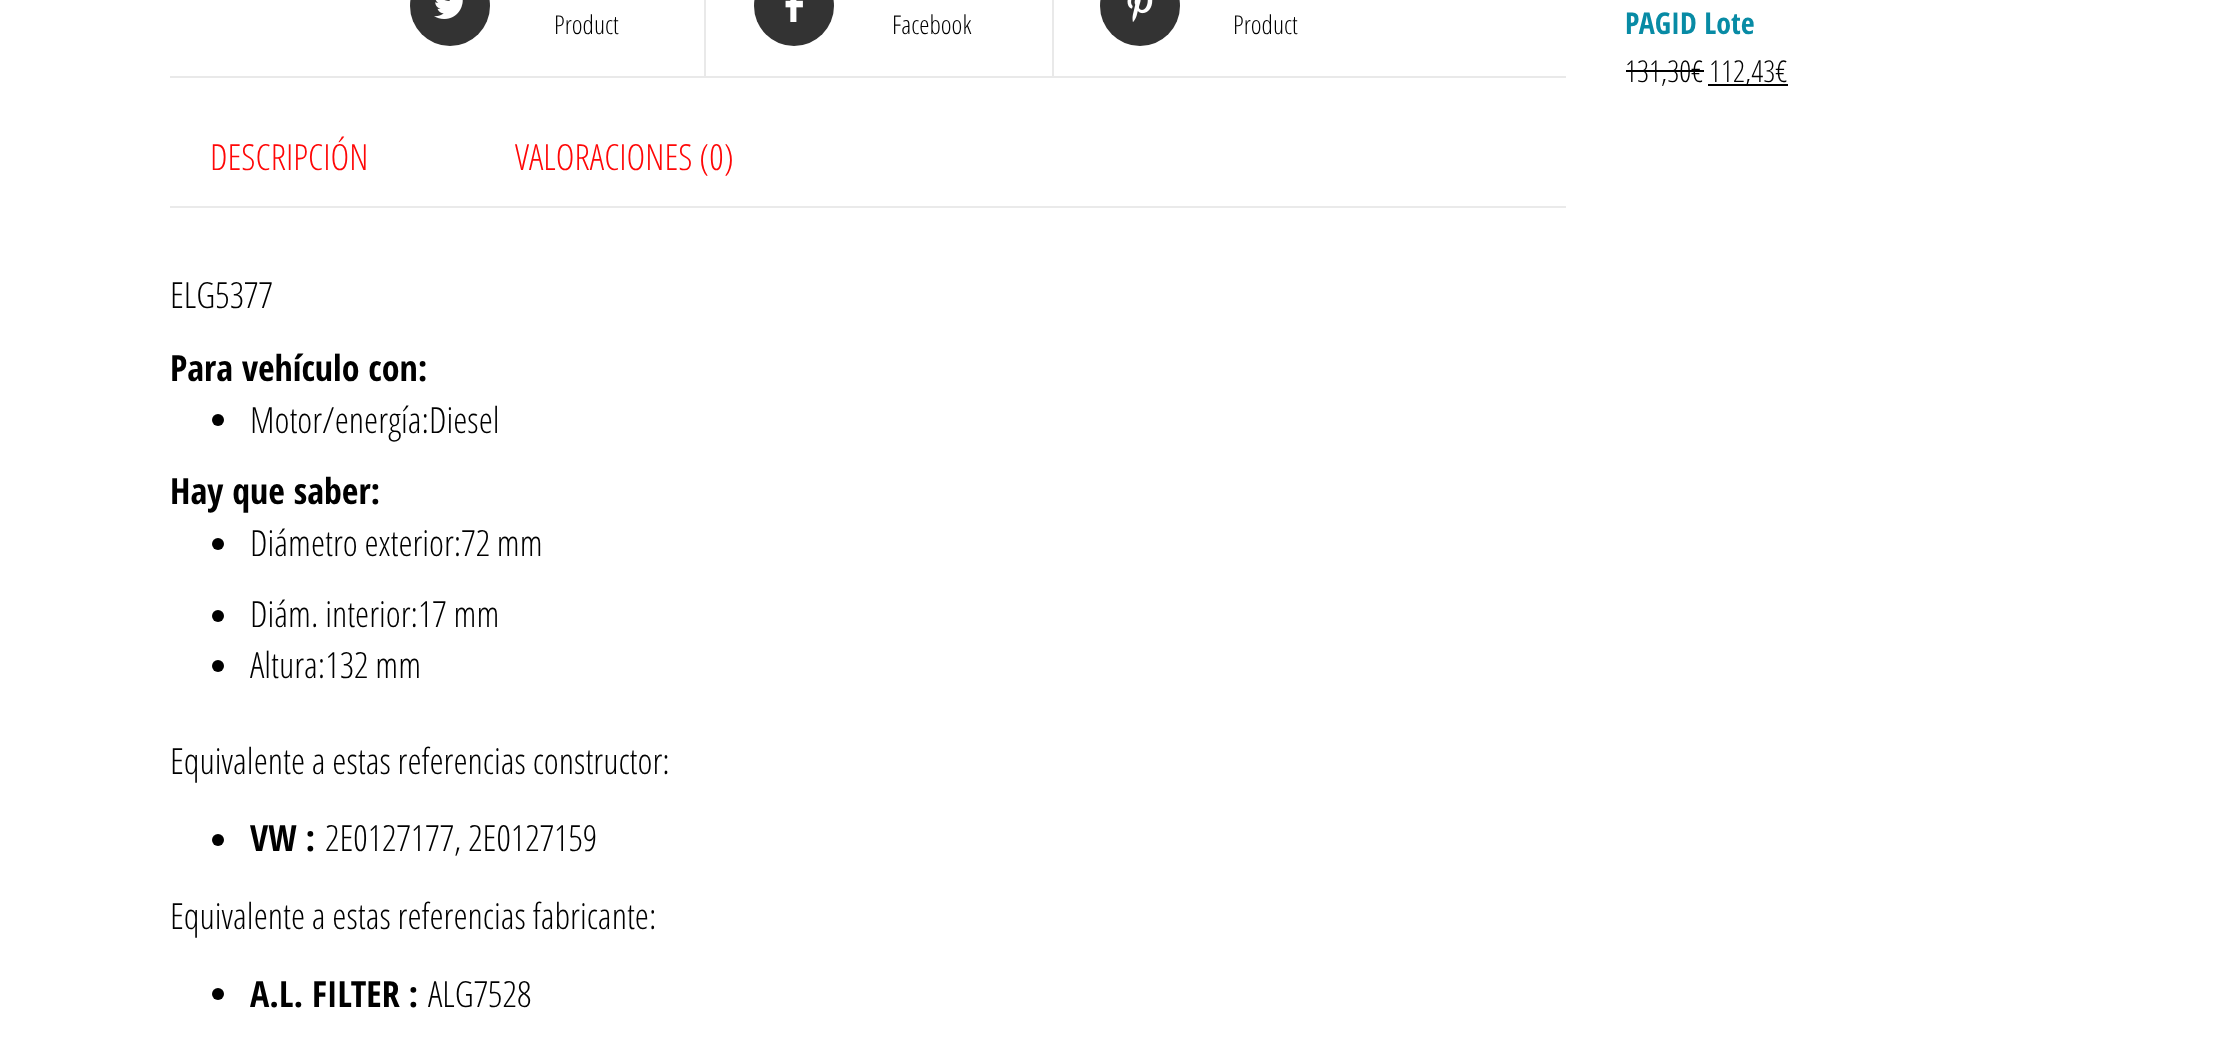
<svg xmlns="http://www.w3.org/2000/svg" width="2220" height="1045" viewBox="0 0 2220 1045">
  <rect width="100%" height="100%" fill="#ffffff"/>
  <rect x="170" y="76" width="1396" height="2" fill="#e9e9e9"/>
  <rect x="704" y="0" width="2" height="76" fill="#e9e9e9"/>
  <circle cx="450" cy="6" r="40" fill="#333333"/>
  <image x="434" y="0" width="29" height="19" href="img1.png"/>
  <text x="554" y="34" font-family="Open Sans Condensed" font-size="26" font-weight="300" fill="#000000">Product</text>
  <rect x="1052" y="0" width="2" height="76" fill="#e9e9e9"/>
  <circle cx="794" cy="6" r="40" fill="#333333"/>
  <image x="785" y="0" width="18" height="22" href="img2.png"/>
  <text x="892" y="34" font-family="Open Sans Condensed" font-size="26" font-weight="300" fill="#000000">Facebook</text>
  <circle cx="1140" cy="6" r="40" fill="#333333"/>
  <image x="1127" y="0" width="26" height="22" href="img3.png"/>
  <text x="1233" y="34" font-family="Open Sans Condensed" font-size="26" font-weight="300" fill="#000000">Product</text>
  <rect x="170" y="206" width="1396" height="2" fill="#eaeaea"/>
  <text x="210" y="170" font-family="Open Sans Condensed" font-size="36" font-weight="300" fill="#ff0707">DESCRIPCIÓN</text>
  <text x="515" y="170" font-family="Open Sans Condensed" font-size="36" font-weight="300" fill="#ff0707">VALORACIONES (0)</text>
  <text x="170" y="308" font-family="Open Sans Condensed" font-size="36" font-weight="300" fill="#000000">ELG5377</text>
  <text x="170" y="381" font-family="Open Sans Condensed" font-size="36" font-weight="bold" fill="#000000">Para vehículo con:</text>
  <circle cx="218" cy="420" r="6" fill="#000000"/>
  <text x="250" y="433" font-family="Open Sans Condensed" font-size="36" font-weight="300" fill="#000000">Motor/energía:Diesel</text>
  <text x="170" y="504" font-family="Open Sans Condensed" font-size="36" font-weight="bold" fill="#000000">Hay que saber:</text>
  <circle cx="218" cy="544" r="6" fill="#000000"/>
  <text x="250" y="556" font-family="Open Sans Condensed" font-size="36" font-weight="300" fill="#000000">Diámetro exterior:72 mm</text>
  <circle cx="218" cy="616" r="6" fill="#000000"/>
  <text x="250" y="627" font-family="Open Sans Condensed" font-size="36" font-weight="300" fill="#000000">Diám. interior:17 mm</text>
  <circle cx="218" cy="666" r="6" fill="#000000"/>
  <text x="250" y="678" font-family="Open Sans Condensed" font-size="36" font-weight="300" fill="#000000">Altura:132 mm</text>
  <text x="170" y="774" font-family="Open Sans Condensed" font-size="36" font-weight="300" fill="#000000">Equivalente a estas referencias constructor:</text>
  <circle cx="218" cy="840" r="6" fill="#000000"/>
  <text x="250" y="851" font-family="Open Sans Condensed" font-size="36" font-weight="bold" fill="#000000">VW :</text>
  <text x="325" y="851" font-family="Open Sans Condensed" font-size="36" font-weight="300" fill="#000000">2E0127177, 2E0127159</text>
  <text x="170" y="929" font-family="Open Sans Condensed" font-size="36" font-weight="300" fill="#000000">Equivalente a estas referencias fabricante:</text>
  <circle cx="218" cy="994" r="6" fill="#000000"/>
  <text x="250" y="1007" font-family="Open Sans Condensed" font-size="36" font-weight="bold" fill="#000000">A.L. FILTER :</text>
  <text x="428" y="1007" font-family="Open Sans Condensed" font-size="36" font-weight="300" fill="#000000">ALG7528</text>
  <text x="1625" y="34" font-family="Open Sans Condensed" font-size="30" font-weight="bold" fill="#088ba5">PAGID Lote</text>
  <text x="1625" y="82" font-family="Open Sans Condensed" font-size="30" font-weight="300" fill="#000000">131,30</text>
  <rect x="1626" y="70" width="66" height="2" fill="#000000"/>
  <text x="1691" y="82" font-family="Open Sans Condensed" font-size="30" font-weight="300" fill="#000000">€</text>
  <rect x="1692" y="70" width="12" height="2" fill="#000000"/>
  <rect x="1708" y="84" width="80" height="2" fill="#000000"/>
  <text x="1709" y="82" font-family="Open Sans Condensed" font-size="30" font-weight="300" fill="#000000">112,43€</text>
</svg>
